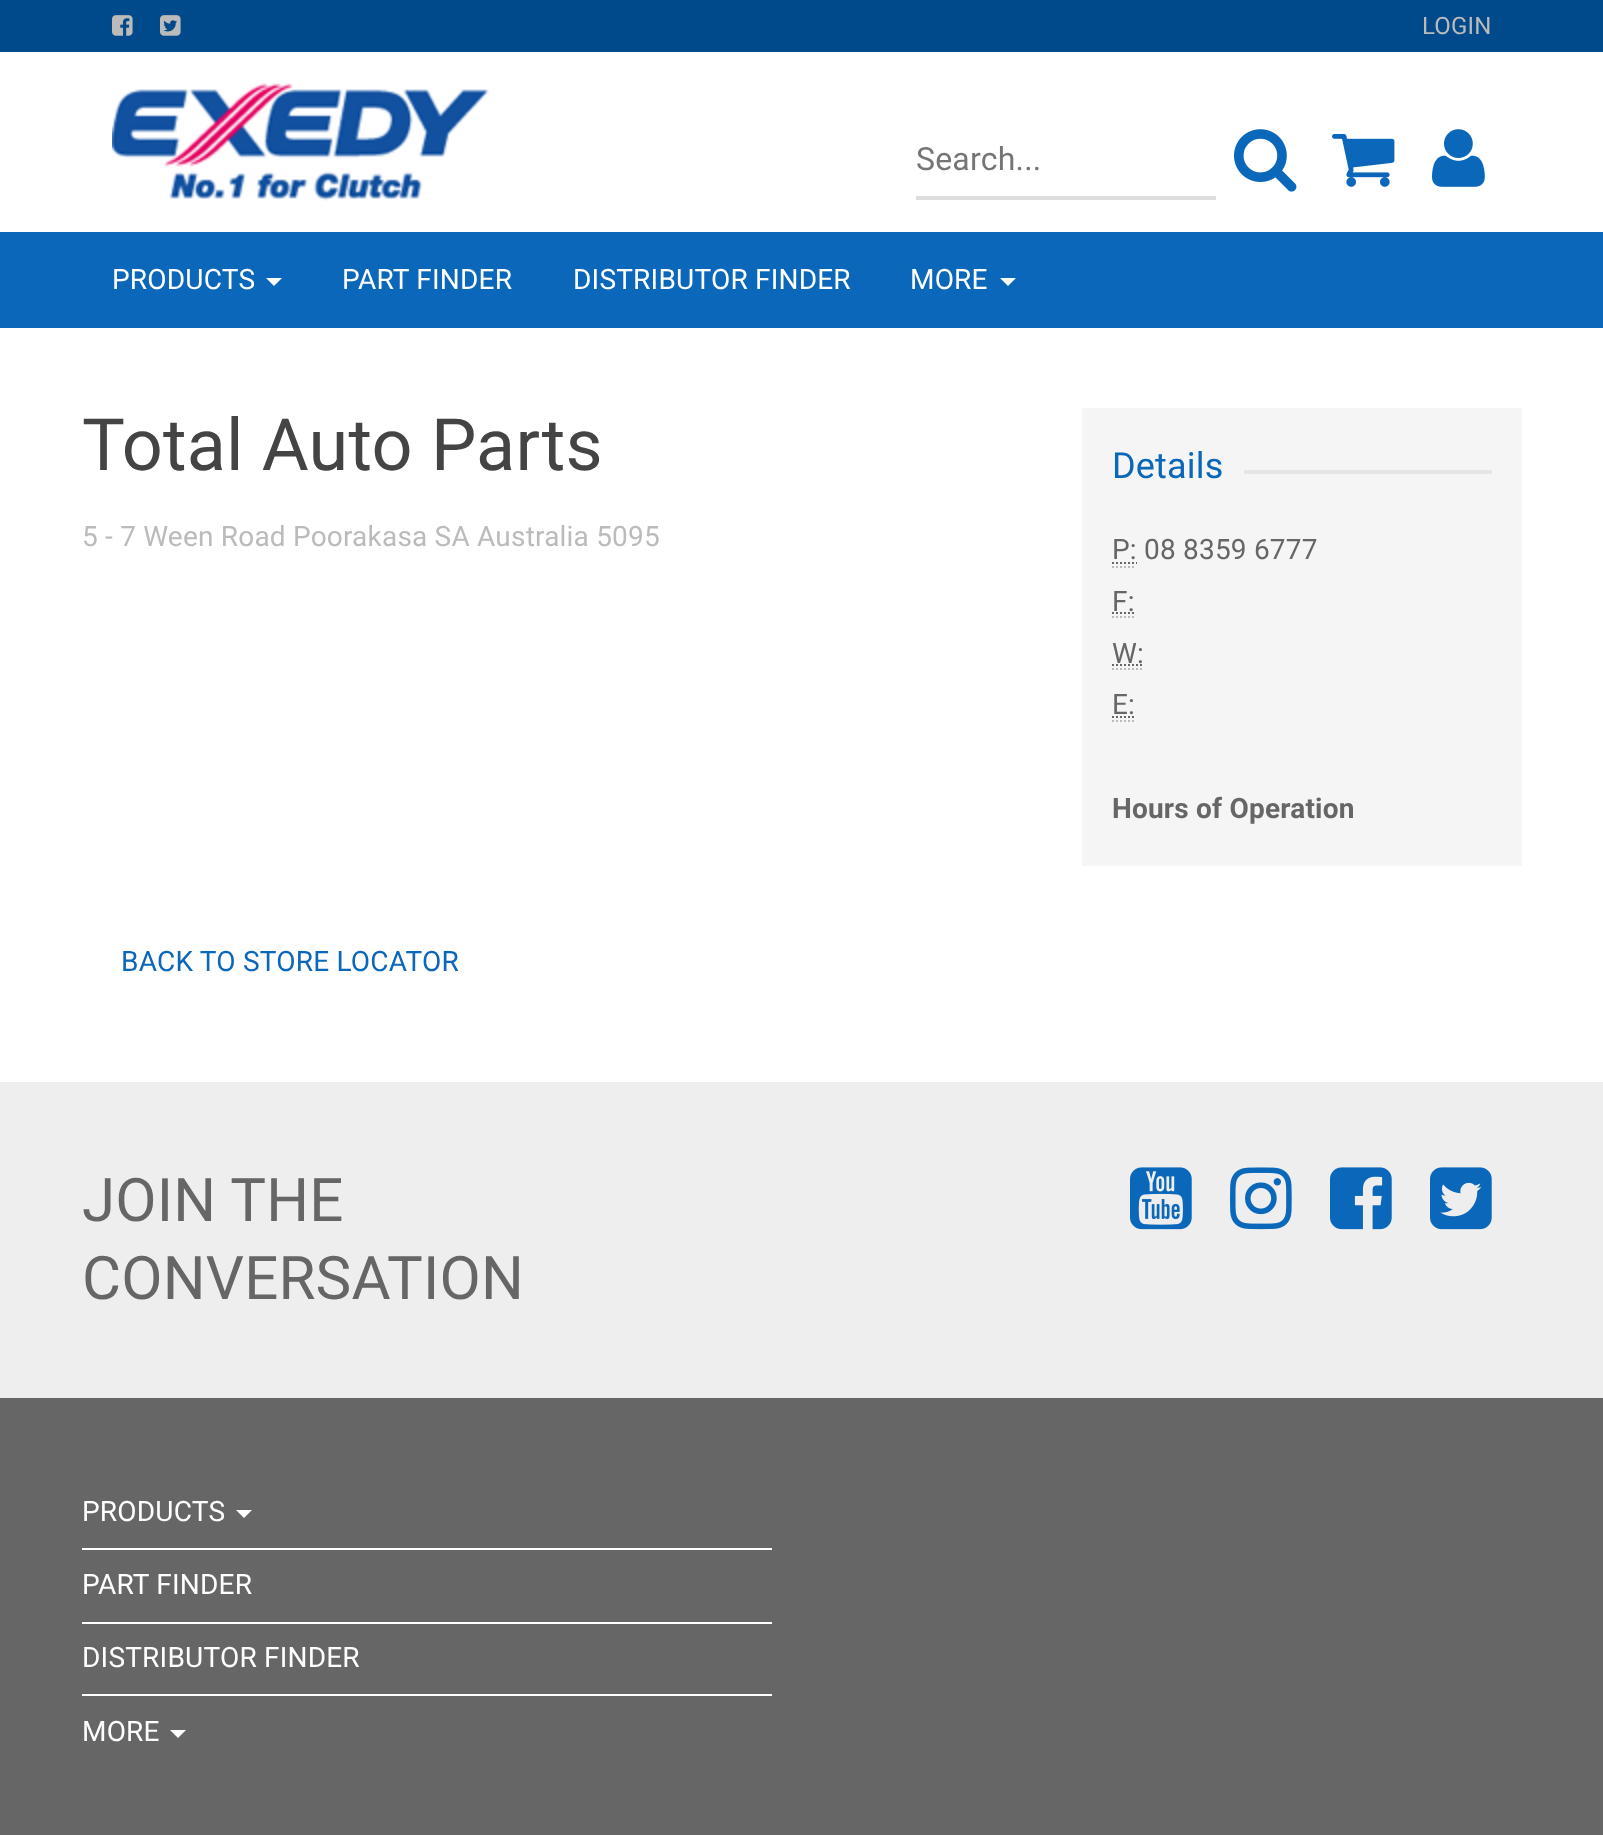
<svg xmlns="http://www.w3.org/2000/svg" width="1603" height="1835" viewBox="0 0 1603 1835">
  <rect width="100%" height="100%" fill="#ffffff"/>
  <rect x="0" y="0" width="1603" height="52" fill="#00498a"/>
  <image x="112" y="15" width="21" height="21" href="img1.png"/>
  <image x="160" y="15" width="21" height="21" href="img2.png"/>
  <text x="1422" y="34" font-family="Roboto" font-size="24" letter-spacing="0.2" fill="#bbbbbb">LOGIN</text>
  <image x="112" y="83" width="377" height="118" href="img3.png"/>
  <rect x="916" y="196" width="300" height="4" fill="#dddddd"/>
  <text x="916" y="170" font-family="Roboto" font-size="32" letter-spacing="0.2" fill="#757575">Search...</text>
  <image x="1234" y="129" width="63" height="63" href="img4.png"/>
  <image x="1332" y="134" width="63" height="53" href="img5.png"/>
  <image x="1432" y="129" width="53" height="58" href="img6.png"/>
  <rect x="0" y="232" width="1603" height="96" fill="#0a67b9"/>
  <text x="112" y="289" font-family="Roboto" font-size="28" letter-spacing="0.2" fill="#fffefe">PRODUCTS</text>
  <path d="M266 278H282L274 286Z" fill="#fffefe"/>
  <text x="342" y="289" font-family="Roboto" font-size="28" letter-spacing="0.2" fill="#fffefe">PART FINDER</text>
  <text x="573" y="289" font-family="Roboto" font-size="28" letter-spacing="0.2" fill="#fffefe">DISTRIBUTOR FINDER</text>
  <text x="910" y="289" font-family="Roboto" font-size="28" letter-spacing="0.2" fill="#fffefe">MORE</text>
  <path d="M1000 278H1016L1008 286Z" fill="#fffefe"/>
  <text x="82" y="470" font-family="Roboto" font-size="72" letter-spacing="0.2" fill="#444444">Total Auto Parts</text>
  <text x="82" y="546" font-family="Roboto" font-size="28" letter-spacing="0.2" fill="#bbbbbb">5 - 7 Ween Road Poorakasa SA Australia 5095</text>
  <rect x="1082" y="408" width="440" height="458" fill="#f5f5f5"/>
  <text x="1112" y="478" font-family="Roboto" font-size="36" letter-spacing="0.2" fill="#0a67b9">Details</text>
  <rect x="1244" y="470" width="248" height="4" fill="#e4e5e6"/>
  <text x="1112" y="559" font-family="Roboto" font-size="28" letter-spacing="0.2" fill="#666666">P: 08 8359 6777</text>
  <path d="M1112 567H1136" fill="none" stroke="#bbbbbb" stroke-width="2" stroke-dasharray="2 2"/>
  <path d="M1112 563H1137" fill="none" stroke="#666666" stroke-width="2" stroke-dasharray="2 2"/>
  <text x="1112" y="611" font-family="Roboto" font-size="28" letter-spacing="0.2" fill="#666666">F:</text>
  <path d="M1112 617H1134" fill="none" stroke="#bbbbbb" stroke-width="2" stroke-dasharray="2 2"/>
  <path d="M1112 613H1134.5" fill="none" stroke="#666666" stroke-width="2" stroke-dasharray="2 2"/>
  <text x="1112" y="663" font-family="Roboto" font-size="28" letter-spacing="0.2" fill="#666666">W:</text>
  <path d="M1112 669H1144" fill="none" stroke="#bbbbbb" stroke-width="2" stroke-dasharray="2 2"/>
  <path d="M1112 665H1144" fill="none" stroke="#666666" stroke-width="2" stroke-dasharray="2 2"/>
  <text x="1112" y="714" font-family="Roboto" font-size="28" letter-spacing="0.2" fill="#666666">E:</text>
  <path d="M1112 721H1136" fill="none" stroke="#bbbbbb" stroke-width="2" stroke-dasharray="2 2"/>
  <path d="M1112 717H1135" fill="none" stroke="#666666" stroke-width="2" stroke-dasharray="2 2"/>
  <text x="1112" y="818" font-family="Roboto" font-size="28" font-weight="bold" letter-spacing="0.2" fill="#666666">Hours of Operation</text>
  <text x="121" y="971" font-family="Roboto" font-size="28" letter-spacing="0.2" fill="#0a67b9">BACK TO STORE LOCATOR</text>
  <rect x="0" y="1082" width="1603" height="316" fill="#eeeeee"/>
  <text x="82" y="1221" font-family="Roboto" font-size="60" letter-spacing="0.2" fill="#666666">JOIN THE</text>
  <text x="82" y="1299" font-family="Roboto" font-size="60" letter-spacing="0.2" fill="#666666">CONVERSATION</text>
  <image x="1130" y="1167" width="62" height="63" href="img7.png"/>
  <image x="1230" y="1167" width="62" height="63" href="img8.png"/>
  <image x="1330" y="1167" width="62" height="63" href="img9.png"/>
  <image x="1430" y="1167" width="62" height="63" href="img10.png"/>
  <rect x="0" y="1398" width="1603" height="437" fill="#666666"/>
  <rect x="82" y="1548" width="690" height="2" fill="#ffffff"/>
  <text x="82" y="1521" font-family="Roboto" font-size="28" letter-spacing="0.2" fill="#fffefe">PRODUCTS</text>
  <path d="M236 1510H252L244 1518Z" fill="#ffffff"/>
  <rect x="82" y="1622" width="690" height="2" fill="#ffffff"/>
  <text x="82" y="1594" font-family="Roboto" font-size="28" letter-spacing="0.2" fill="#fffefe">PART FINDER</text>
  <rect x="82" y="1694" width="690" height="2" fill="#ffffff"/>
  <text x="82" y="1667" font-family="Roboto" font-size="28" letter-spacing="0.2" fill="#fffefe">DISTRIBUTOR FINDER</text>
  <text x="82" y="1741" font-family="Roboto" font-size="28" letter-spacing="0.2" fill="#fffefe">MORE</text>
  <path d="M170 1730H186L178 1738Z" fill="#ffffff"/>
</svg>
